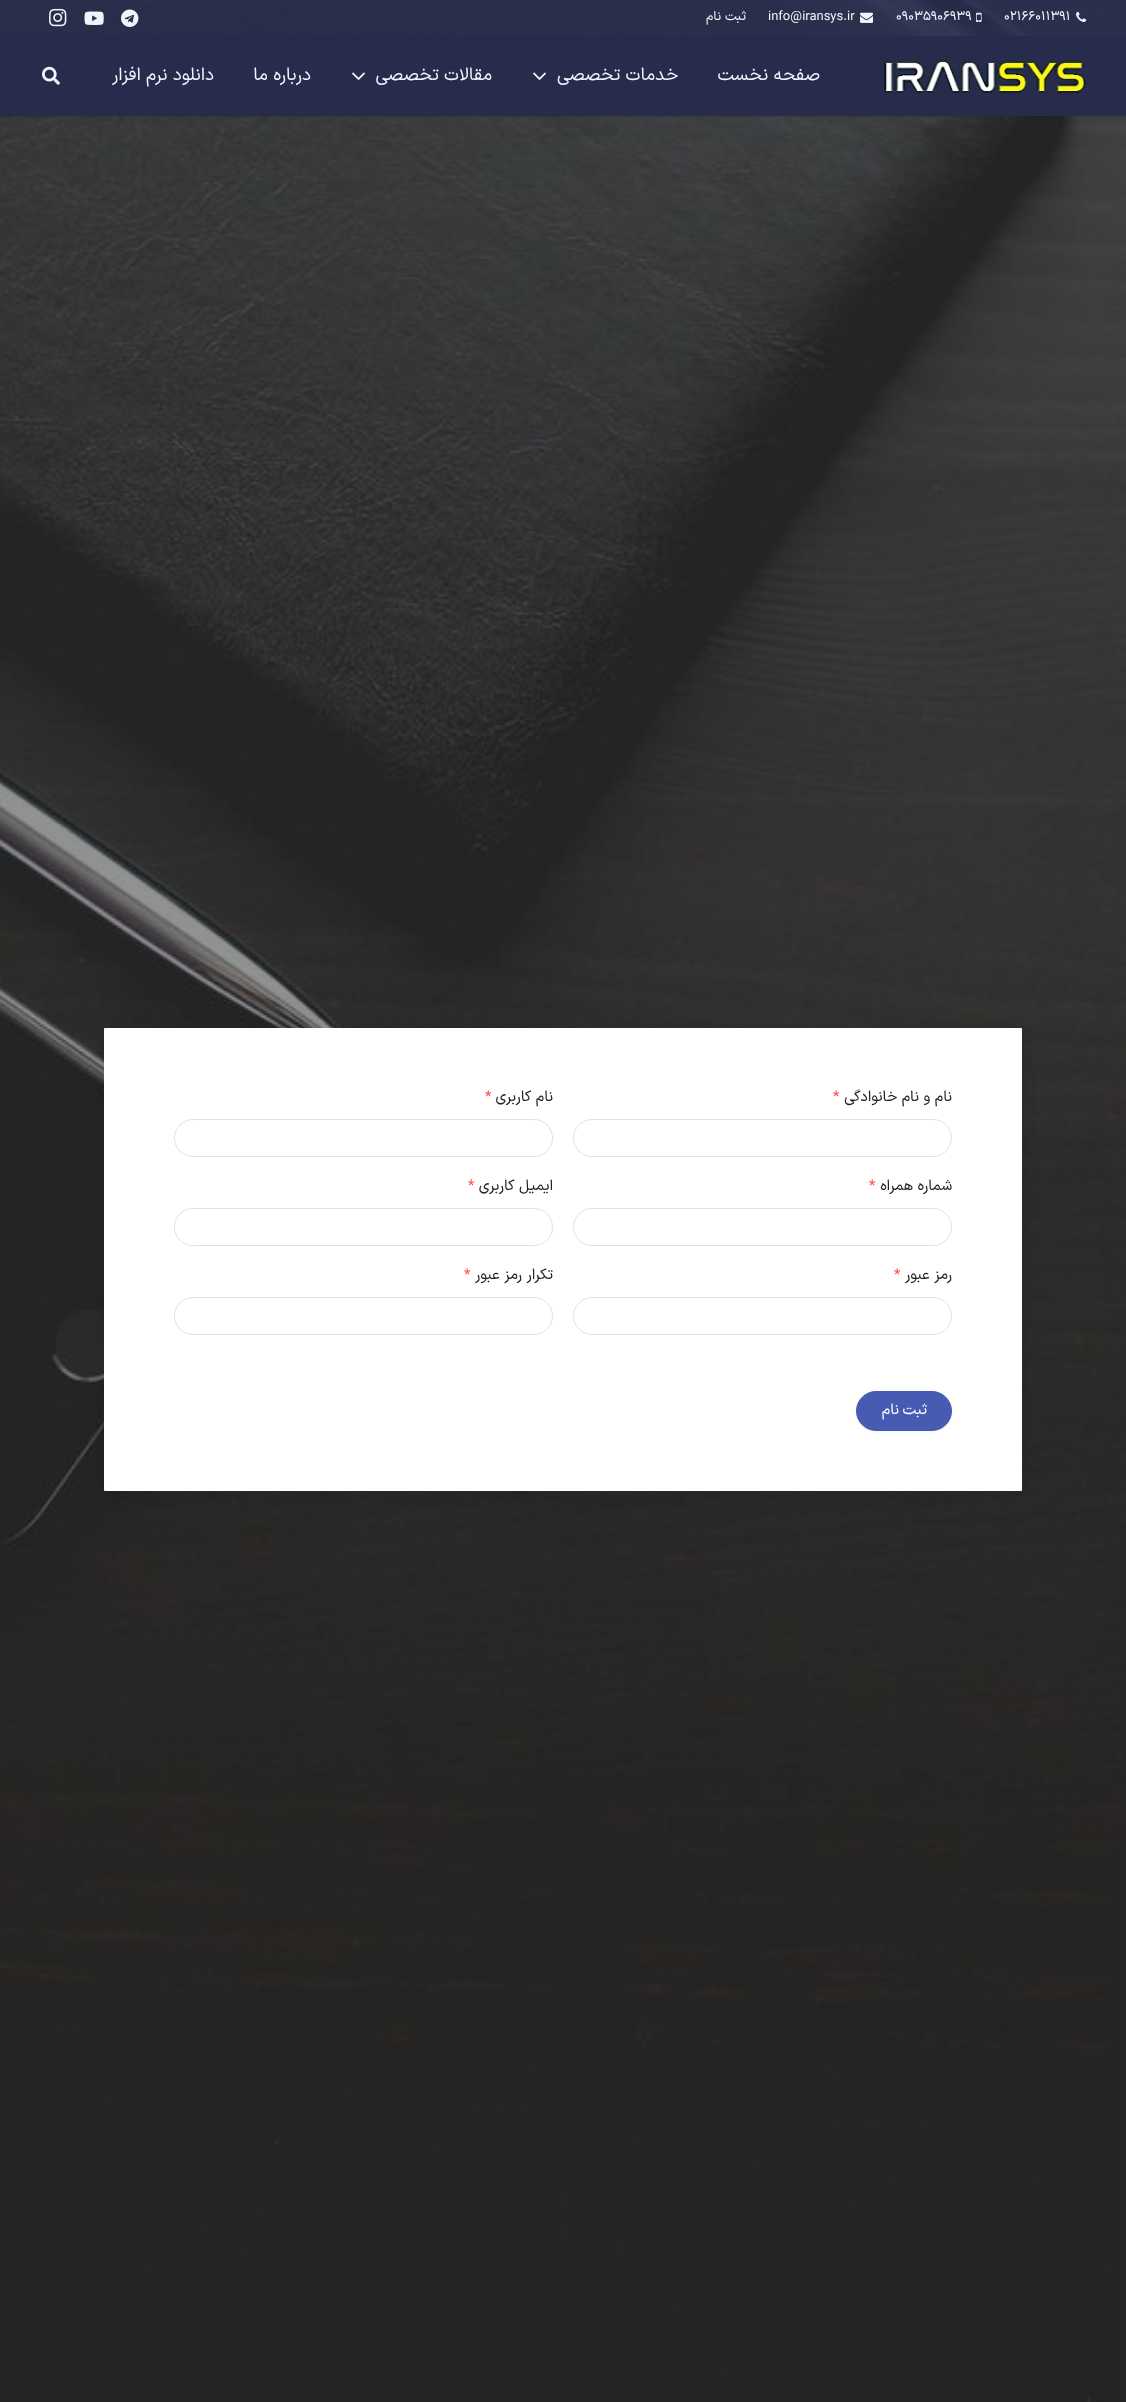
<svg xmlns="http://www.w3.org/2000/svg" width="1126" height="2402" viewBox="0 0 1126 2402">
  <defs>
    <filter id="blur1" x="-50%" y="-200%" width="200%" height="500%"><feGaussianBlur stdDeviation="16"/></filter>
    <filter id="blur2" x="-50%" y="-200%" width="200%" height="500%"><feGaussianBlur stdDeviation="8"/></filter>
    <filter id="blur3" x="-50%" y="-200%" width="200%" height="500%"><feGaussianBlur stdDeviation="1.5"/></filter>
  </defs>
  <rect width="100%" height="100%" fill="#ffffff"/>
  <image x="0" y="0" width="1126" height="2402" href="img10.png"/>
  <rect x="0" y="0" width="1126" height="36" fill="#272c4c" fill-opacity="0.85"/>
  <image x="1076" y="11" width="11" height="11" href="img1.png"/>
  <text x="1004" y="20" font-family="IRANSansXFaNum" font-size="13" fill="#f1f4fc">02166011391</text>
  <image x="976" y="12" width="6" height="10" href="img2.png"/>
  <text x="896" y="20" font-family="IRANSansXFaNum" font-size="13" fill="#f1f4fc">09035906939</text>
  <image x="860" y="12" width="13" height="11" href="img3.png"/>
  <text x="768" y="20" font-family="IRANSansXFaNum" font-size="13" fill="#f1f4fc">info@iransys.ir</text>
  <text x="746" y="20" font-family="IRANSansXFaNum" font-size="13" direction="rtl" fill="#f1f4fc">ثبت نام</text>
  <image x="121" y="9" width="18" height="18" href="img4.png"/>
  <image x="84" y="11" width="20" height="14" href="img5.png"/>
  <image x="49" y="8" width="18" height="19" href="img6.png"/>
  <rect x="0" y="116" width="1126" height="1" fill="#000000" fill-opacity="0.08"/>
  <rect x="0" y="36" width="1126" height="80" fill="#272c4c"/>
  <image x="884" y="60" width="202" height="33" href="img7.png"/>
  <text x="820" y="80" font-family="IRANSansXFaNum" font-size="18" direction="rtl" fill="#f1f4fc">صفحه نخست</text>
  <text x="678" y="80" font-family="IRANSansXFaNum" font-size="18" direction="rtl" fill="#f1f4fc">خدمات تخصصی</text>
  <image x="533" y="72" width="13" height="8" href="img8.png"/>
  <text x="492" y="80" font-family="IRANSansXFaNum" font-size="18" direction="rtl" fill="#f1f4fc">مقالات تخصصی</text>
  <image x="352" y="72" width="13" height="8" href="img8.png"/>
  <text x="311" y="80" font-family="IRANSansXFaNum" font-size="18" direction="rtl" fill="#f1f4fc">درباره ما</text>
  <text x="214" y="80" font-family="IRANSansXFaNum" font-size="18" direction="rtl" fill="#f1f4fc">دانلود نرم افزار</text>
  <image x="42" y="66" width="18" height="19" href="img9.png"/>
  <rect x="104" y="1028" width="918" height="463" fill="#ebebeb"/>
  <rect x="104" y="1036" width="918" height="463" rx="4" fill="#11111a" fill-opacity="0.05" filter="url(#blur1)"/>
  <rect x="104" y="1032" width="918" height="463" rx="4" fill="#11111a" fill-opacity="0.05" filter="url(#blur2)"/>
  <rect x="104" y="1028" width="918" height="463" rx="4" fill="#ffffff"/>
  <text x="952" y="1101" font-family="IRANSansXFaNum" font-size="15" direction="rtl" fill="#222222">نام و نام خانوادگی</text>
  <text x="833" y="1101" font-family="IRANSansXFaNum" font-size="15" fill="#ff4f55">*</text>
  <rect x="573.5" y="1119.5" width="378" height="37" rx="18.5" fill="none" stroke="#e1e1e1"/>
  <text x="952" y="1190" font-family="IRANSansXFaNum" font-size="15" direction="rtl" fill="#222222">شماره همراه</text>
  <text x="869" y="1190" font-family="IRANSansXFaNum" font-size="15" fill="#ff4f55">*</text>
  <rect x="573.5" y="1208.5" width="378" height="37" rx="18.5" fill="none" stroke="#e1e1e1"/>
  <text x="952" y="1279" font-family="IRANSansXFaNum" font-size="15" direction="rtl" fill="#222222">رمز عبور</text>
  <text x="894" y="1279" font-family="IRANSansXFaNum" font-size="15" fill="#ff4f55">*</text>
  <rect x="573.5" y="1297.5" width="378" height="37" rx="18.5" fill="none" stroke="#e1e1e1"/>
  <text x="553" y="1101" font-family="IRANSansXFaNum" font-size="15" direction="rtl" fill="#222222">نام کاربری</text>
  <text x="485" y="1101" font-family="IRANSansXFaNum" font-size="15" fill="#ff4f55">*</text>
  <rect x="174.5" y="1119.5" width="378" height="37" rx="18.5" fill="none" stroke="#e1e1e1"/>
  <text x="553" y="1190" font-family="IRANSansXFaNum" font-size="15" direction="rtl" fill="#222222">ایمیل کاربری</text>
  <text x="468" y="1190" font-family="IRANSansXFaNum" font-size="15" fill="#ff4f55">*</text>
  <rect x="174.5" y="1208.5" width="378" height="37" rx="18.5" fill="none" stroke="#e1e1e1"/>
  <text x="553" y="1279" font-family="IRANSansXFaNum" font-size="15" direction="rtl" fill="#222222">تکرار رمز عبور</text>
  <text x="464" y="1279" font-family="IRANSansXFaNum" font-size="15" fill="#ff4f55">*</text>
  <rect x="174.5" y="1297.5" width="378" height="37" rx="18.5" fill="none" stroke="#e1e1e1"/>
  <rect x="856" y="1392" width="96" height="40" rx="20" fill="#b6bbcf" fill-opacity="0.15" filter="url(#blur3)"/>
  <rect x="856.5" y="1391.5" width="95" height="39" rx="19.5" fill="#475bb2" stroke="#475bb2"/>
  <text x="927" y="1414" word-spacing="-1" font-family="IRANSansXFaNum" font-size="15" letter-spacing="0.25" direction="rtl" fill="#ffffff">ثبت نام</text>
</svg>
